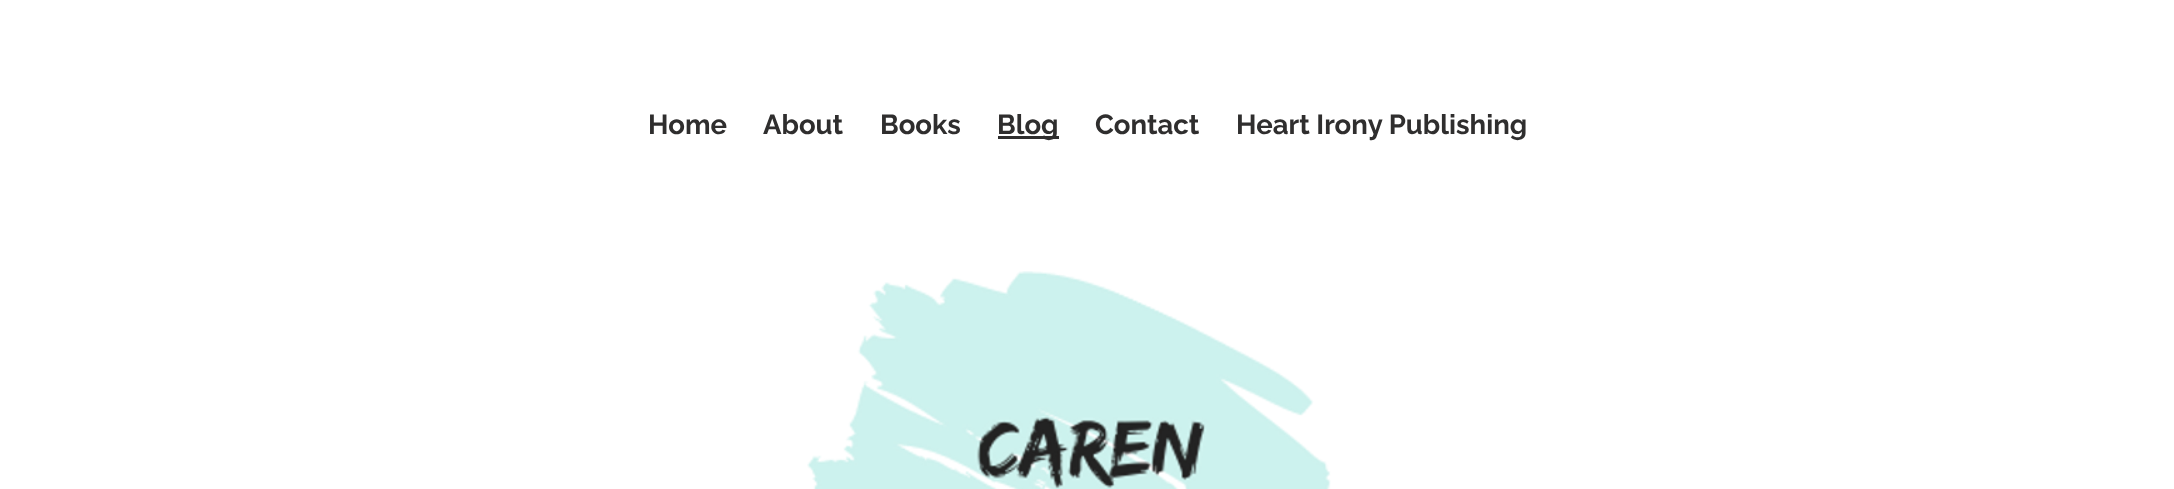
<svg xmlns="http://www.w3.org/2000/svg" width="2174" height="489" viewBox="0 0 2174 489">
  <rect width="100%" height="100%" fill="#ffffff"/>
  <text x="648" y="134" font-family="Raleway" font-size="27.5" font-weight="bold" fill="#2f2e2e">Home</text>
  <text x="763" y="134" font-family="Raleway" font-size="27.5" font-weight="bold" fill="#2f2e2e">About</text>
  <text x="880" y="134" font-family="Raleway" font-size="27.5" font-weight="bold" fill="#2f2e2e">Books</text>
  <rect x="998" y="136" width="61" height="3" fill="#2f2e2e"/>
  <text x="997" y="134" font-family="Raleway" font-size="27.5" font-weight="bold" fill="#2f2e2e">Blog</text>
  <text x="1095" y="134" font-family="Raleway" font-size="27.5" font-weight="bold" fill="#2f2e2e">Contact</text>
  <text x="1236" y="134" font-family="Raleway" font-size="27.5" font-weight="bold" fill="#2f2e2e">Heart Irony Publishing</text>
  <image x="807" y="271" width="524" height="218" href="img1.png"/>
</svg>
